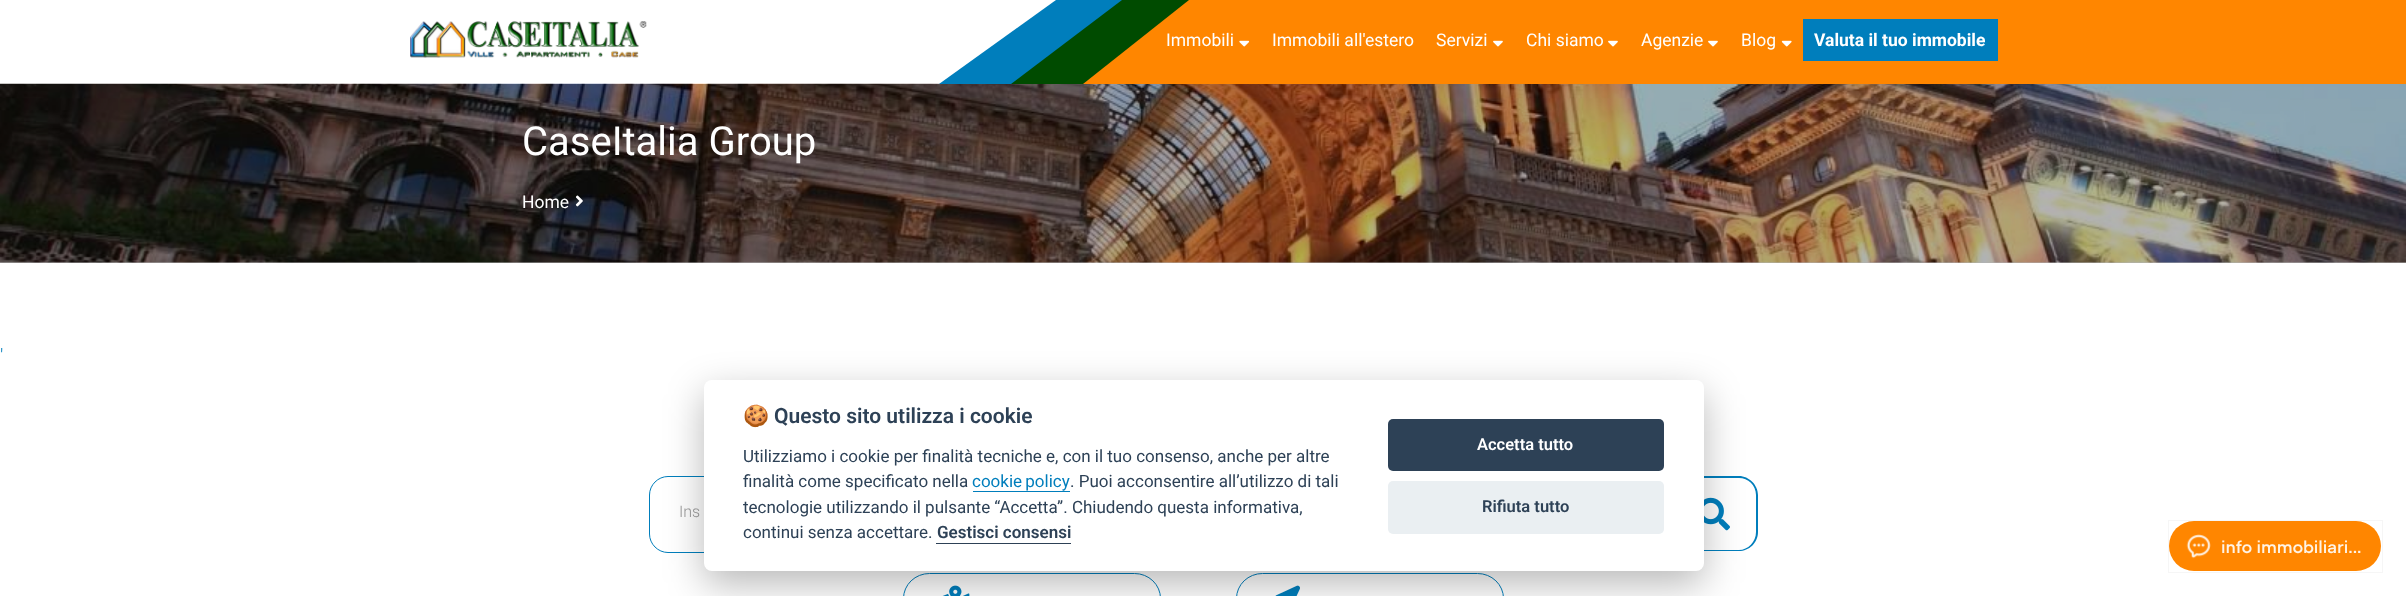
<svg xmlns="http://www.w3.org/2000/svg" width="2406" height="596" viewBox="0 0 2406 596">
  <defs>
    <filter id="blur1" x="-50%" y="-200%" width="200%" height="500%"><feGaussianBlur stdDeviation="19"/></filter>
  </defs>
  <rect width="100%" height="100%" fill="#ffffff"/>
  <rect x="0" y="262" width="2406" height="1" fill="#b3b3b3"/>
  <image x="0" y="83" width="2406" height="180" href="img5.png"/>
  <path d="M1056 0L939 84H2406V0Z" fill="#007ebc"/>
  <path d="M1122 0L1011 84H2406V0Z" fill="#004b00"/>
  <path d="M1189 0L1083 84H2406V0Z" fill="#ff8600"/>
  <image x="410" y="21" width="237" height="37" href="img1.png"/>
  <text x="1166" y="46" font-family="Roboto" font-size="17.5" fill="#ffffff">Immobili</text>
  <image x="1239" y="40" width="11" height="7" href="img2.png"/>
  <text x="1272" y="46" font-family="Roboto" font-size="17.5" fill="#ffffff">Immobili all'estero</text>
  <text x="1436" y="46" font-family="Roboto" font-size="17.5" fill="#ffffff">Servizi</text>
  <image x="1493" y="40" width="10" height="7" href="img3.png"/>
  <text x="1526" y="46" font-family="Roboto" font-size="17.5" fill="#ffffff">Chi siamo</text>
  <image x="1608" y="40" width="10" height="7" href="img3.png"/>
  <text x="1641" y="46" font-family="Roboto" font-size="17.5" fill="#ffffff">Agenzie</text>
  <image x="1708" y="40" width="10" height="7" href="img3.png"/>
  <text x="1741" y="46" font-family="Roboto" font-size="17.5" fill="#ffffff">Blog</text>
  <image x="1781" y="40" width="11" height="7" href="img4.png"/>
  <rect x="1803" y="19" width="195" height="42" fill="#007ebc"/>
  <text x="1814" y="46" font-family="Roboto" font-size="17.5" font-weight="bold" fill="#ffffff">Valuta il tuo immobile</text>
  <text x="522" y="155" font-family="Roboto" font-size="40" fill="#ffffff">CaseItalia Group</text>
  <text x="522" y="208" font-family="Roboto" font-size="17.5" fill="#ffffff">Home</text>
  <image x="575" y="195" width="8" height="12" href="img6.png"/>
  <text x="0" y="363" font-family="Roboto" font-size="20" font-weight="300" fill="#007ebc">'</text>
  <path d="M668 476.5H1670.5V552.5H668C658 552.5 649.5 544 649.5 534V495C649.5 485 658 476.5 668 476.5Z" fill="none" stroke="#007ebc"/>
  <text x="679" y="517" font-family="Roboto" font-size="16" font-weight="300" fill="#999999">Ins</text>
  <path d="M1671 476H1739C1749 476 1758 485 1758 495V532C1758 543 1749 551 1739 551H1671ZM1671 478H1739C1748 478 1756 485 1756 495V532C1756 542 1748 550 1739 550H1671Z" fill="#007ebc" fill-rule="evenodd"/>
  <image x="1704" y="497" width="26" height="34" href="img7.png"/>
  <rect x="903.5" y="573.5" width="257" height="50" rx="26" fill="none" stroke="#007ebc"/>
  <image x="942" y="585" width="28" height="11" href="img8.png"/>
  <rect x="1236.5" y="573.5" width="267" height="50" rx="26" fill="none" stroke="#007ebc"/>
  <image x="1275" y="585" width="25" height="11" href="img9.png"/>
  <rect x="704" y="393" width="1000" height="191" rx="8" fill="#020203" fill-opacity="0.28" filter="url(#blur1)"/>
  <rect x="704" y="380" width="1000" height="191" rx="8" fill="#ffffff"/>
  <text x="743" y="423" font-family="Noto Color Emoji" font-size="21" font-weight="bold" fill="#2d4156">🍪</text>
  <text x="774" y="423" font-family="Roboto" font-size="21" font-weight="600" fill="#2d4156">Questo sito utilizza i cookie</text>
  <text x="743" y="462" font-family="Roboto" font-size="17" fill="#2d4156">Utilizziamo i cookie per finalità tecniche e, con il tuo consenso, anche per altre</text>
  <text x="743" y="487" font-family="Roboto" font-size="17" fill="#2d4156">finalità come specificato nella</text>
  <text x="972" y="487" word-spacing="-1" font-family="Roboto" font-size="17" fill="#007ebc">cookie policy</text>
  <rect x="973" y="491" width="97" height="1" fill="#007ebc"/>
  <text x="1070" y="487" font-family="Roboto" font-size="17" fill="#2d4156">. Puoi acconsentire all’utilizzo di tali</text>
  <text x="743" y="513" font-family="Roboto" font-size="17" fill="#2d4156">tecnologie utilizzando il pulsante “Accetta”. Chiudendo questa informativa,</text>
  <text x="743" y="538" font-family="Roboto" font-size="17" fill="#2d4156">continui senza accettare.</text>
  <text x="937" y="538" font-family="Roboto" font-size="17" font-weight="600" fill="#2d4156">Gestisci consensi</text>
  <rect x="936" y="543" width="135" height="1" fill="#2d4156"/>
  <rect x="1388" y="419" width="276" height="52" rx="5" fill="#2d4156"/>
  <text x="1477" y="450" font-family="Roboto" font-size="16.5" font-weight="600" fill="#ffffff">Accetta tutto</text>
  <rect x="1388" y="481" width="276" height="53" rx="5" fill="#eaeff2"/>
  <text x="1482" y="512" font-family="Roboto" font-size="16.5" font-weight="600" fill="#2d4156">Rifiuta tutto</text>
  <rect x="2168.5" y="520.5" width="214" height="52" fill="none" stroke="#161a1e" stroke-opacity="0.04"/>
  <rect x="2169" y="521" width="212" height="50" rx="25" fill="#ff8600"/>
  <image x="2186" y="534" width="25" height="25" href="img10.png"/>
  <text x="2221" y="553" font-family="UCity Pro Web" font-size="17.5" font-weight="600" fill="#fff3e5">info immobiliari...</text>
</svg>
